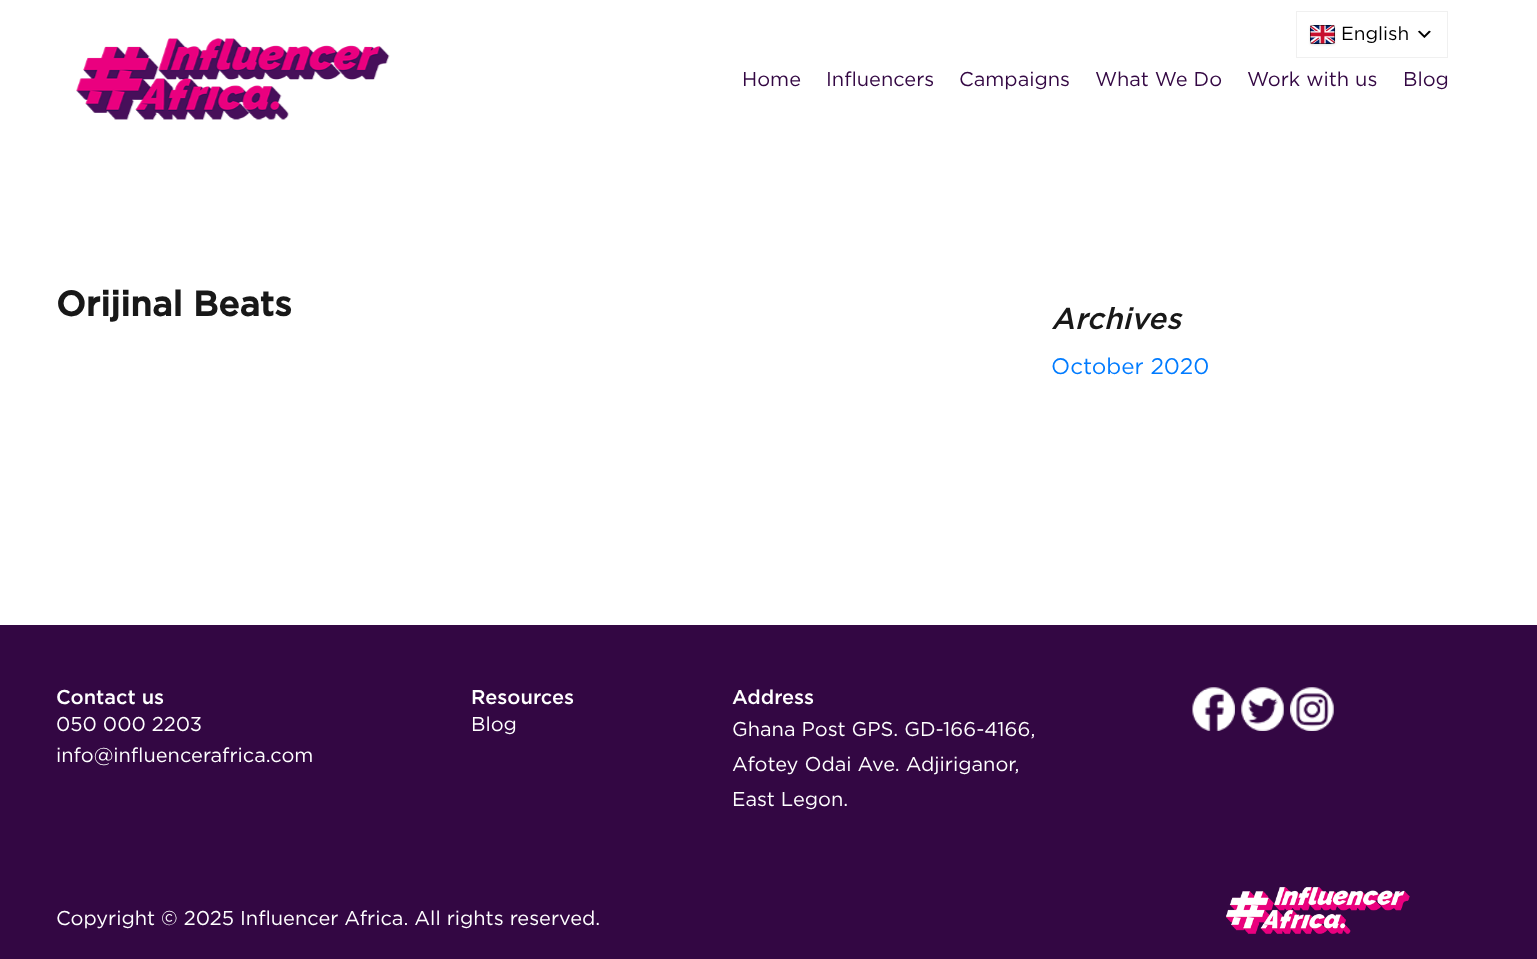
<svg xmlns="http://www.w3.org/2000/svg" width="1537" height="959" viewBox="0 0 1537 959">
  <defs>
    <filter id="blur1" x="-50%" y="-200%" width="200%" height="500%"><feGaussianBlur stdDeviation="1"/></filter>
  </defs>
  <rect width="100%" height="100%" fill="#330743"/>
  <rect x="0" y="0" width="1537" height="625" fill="#ffffff"/>
  <rect x="1296.5" y="11.5" width="151" height="46" fill="none" stroke="#f0f0f0"/>
  <rect x="1310" y="26" width="25" height="19" rx="2" fill="#000000" fill-opacity="0.1" filter="url(#blur1)"/>
  <image x="1310" y="25" width="25" height="19" href="img1.png"/>
  <rect x="1310.5" y="25.5" width="24" height="18" rx="2" fill="none" stroke="#000000" stroke-opacity="0.5"/>
  <text x="1341" y="40" font-family="Gotham" font-size="19" fill="#000000">English</text>
  <image x="1417" y="30" width="14" height="8" href="img2.png"/>
  <image x="76" y="38" width="314" height="82" href="img3.png"/>
  <text x="742" y="86" font-family="Gotham" font-size="20" fill="#330743">Home</text>
  <text x="826" y="86" font-family="Gotham" font-size="20" fill="#330743">Influencers</text>
  <text x="959" y="86" font-family="Gotham" font-size="20" fill="#330743">Campaigns</text>
  <text x="1095" y="86" font-family="Gotham" font-size="20" fill="#330743">What We Do</text>
  <text x="1247" y="86" font-family="Gotham" font-size="20" fill="#330743">Work with us</text>
  <text x="1403" y="86" font-family="Gotham" font-size="20" fill="#330743">Blog</text>
  <text x="56" y="316" font-family="Gotham" font-size="35" font-weight="bold" fill="#181818">Orijinal Beats</text>
  <text x="1051" y="329" font-family="Gotham" font-size="30" font-weight="500" font-style="italic" fill="#181818">Archives</text>
  <text x="1051" y="374" font-family="Gotham" font-size="22.5" fill="#007bff">October 2020</text>
  <text x="56" y="704" font-family="Gotham" font-size="20" font-weight="500" fill="#ffffff">Contact us</text>
  <text x="56" y="731" font-family="Gotham" font-size="20" fill="#ffffff">050 000 2203</text>
  <text x="56" y="762" font-family="Gotham" font-size="20" fill="#ffffff">info@influencerafrica.com</text>
  <text x="471" y="704" font-family="Gotham" font-size="20" font-weight="500" fill="#ffffff">Resources</text>
  <text x="471" y="731" font-family="Gotham" font-size="20" fill="#ffffff">Blog</text>
  <text x="732" y="704" font-family="Gotham" font-size="20" font-weight="500" fill="#ffffff">Address</text>
  <text x="732" y="736" font-family="Gotham" font-size="20" fill="#ffffff">Ghana Post GPS. GD-166-4166,</text>
  <text x="732" y="771" font-family="Gotham" font-size="20" fill="#ffffff">Afotey Odai Ave. Adjiriganor,</text>
  <text x="732" y="806" font-family="Gotham" font-size="20" fill="#ffffff">East Legon.</text>
  <image x="1192" y="687" width="43" height="44" href="img4.png"/>
  <image x="1241" y="687" width="43" height="44" href="img5.png"/>
  <image x="1290" y="687" width="44" height="44" href="img6.png"/>
  <text x="56" y="925" font-family="Gotham" font-size="20" fill="#ffffff">Copyright © 2025 Influencer Africa. All rights reserved.</text>
  <image x="1226" y="887" width="184" height="47" href="img7.png"/>
</svg>
